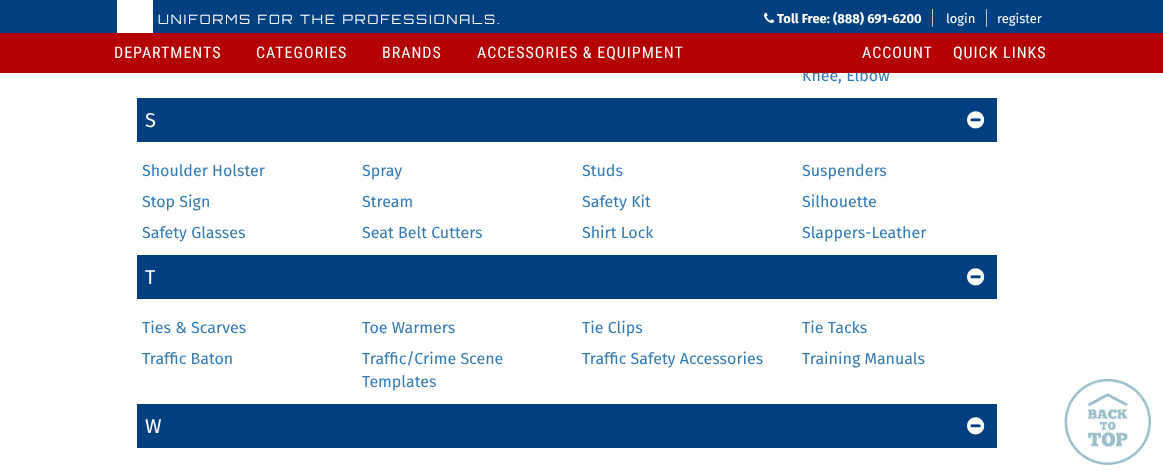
<svg xmlns="http://www.w3.org/2000/svg" width="1163" height="476" viewBox="0 0 1163 476">
  <rect width="100%" height="100%" fill="#ffffff"/>
  <rect x="0" y="0" width="1163" height="33" fill="#004080"/>
  <rect x="117" y="0" width="36" height="33" fill="#ffffff"/>
  <text x="158" y="24" font-family="Orbitron" font-size="13" letter-spacing="2" fill="#ffffff">UNIFORMS FOR THE PROFESSIONALS.</text>
  <rect x="932" y="9" width="1" height="18" fill="#c4c3c2"/>
  <image x="764" y="12" width="11" height="11" href="img1.png"/>
  <text x="777" y="23" font-family="Fira Sans" font-size="13" font-weight="bold" fill="#ffffff">Toll Free: (888) 691-6200</text>
  <text x="946" y="23" font-family="Fira Sans" font-size="13" fill="#ffffff">login</text>
  <rect x="986" y="9" width="1" height="18" fill="#c4c3c2"/>
  <text x="997" y="23" font-family="Fira Sans" font-size="13" fill="#ffffff">register</text>
  <text x="802" y="81" font-family="Fira Sans" font-size="16" fill="#337ab7">Knee, Elbow</text>
  <rect x="0" y="33" width="1163" height="40" fill="#b40000"/>
  <text x="114" y="58" font-family="Roboto Condensed" font-size="16" letter-spacing="1" fill="#ffffff">DEPARTMENTS</text>
  <text x="256" y="58" font-family="Roboto Condensed" font-size="16" letter-spacing="1" fill="#ffffff">CATEGORIES</text>
  <text x="382" y="58" font-family="Roboto Condensed" font-size="16" letter-spacing="1" fill="#ffffff">BRANDS</text>
  <text x="477" y="58" font-family="Roboto Condensed" font-size="16" letter-spacing="1" fill="#ffffff">ACCESSORIES &amp; EQUIPMENT</text>
  <text x="862" y="58" font-family="Roboto Condensed" font-size="16" letter-spacing="1" fill="#ffffff">ACCOUNT</text>
  <text x="953" y="58" font-family="Roboto Condensed" font-size="16" letter-spacing="1" fill="#ffffff">QUICK LINKS</text>
  <rect x="137" y="98" width="860" height="44" fill="#004080"/>
  <text x="145" y="127" font-family="Fira Sans" font-size="20" fill="#ffffff">S</text>
  <image x="967" y="111" width="18" height="18" href="img2.png"/>
  <text x="142" y="176" font-family="Fira Sans" font-size="16" fill="#337ab7">Shoulder Holster</text>
  <text x="362" y="176" font-family="Fira Sans" font-size="16" fill="#337ab7">Spray</text>
  <text x="582" y="176" font-family="Fira Sans" font-size="16" fill="#337ab7">Studs</text>
  <text x="802" y="176" font-family="Fira Sans" font-size="16" fill="#337ab7">Suspenders</text>
  <text x="142" y="207" font-family="Fira Sans" font-size="16" fill="#337ab7">Stop Sign</text>
  <text x="362" y="207" font-family="Fira Sans" font-size="16" fill="#337ab7">Stream</text>
  <text x="582" y="207" font-family="Fira Sans" font-size="16" fill="#337ab7">Safety Kit</text>
  <text x="802" y="207" font-family="Fira Sans" font-size="16" fill="#337ab7">Silhouette</text>
  <text x="142" y="238" font-family="Fira Sans" font-size="16" fill="#337ab7">Safety Glasses</text>
  <text x="362" y="238" font-family="Fira Sans" font-size="16" fill="#337ab7">Seat Belt Cutters</text>
  <text x="582" y="238" font-family="Fira Sans" font-size="16" fill="#337ab7">Shirt Lock</text>
  <text x="802" y="238" font-family="Fira Sans" font-size="16" fill="#337ab7">Slappers-Leather</text>
  <rect x="137" y="255" width="860" height="44" fill="#004080"/>
  <text x="145" y="284" font-family="Fira Sans" font-size="20" fill="#ffffff">T</text>
  <image x="967" y="268" width="18" height="18" href="img2.png"/>
  <text x="142" y="333" font-family="Fira Sans" font-size="16" fill="#337ab7">Ties &amp; Scarves</text>
  <text x="362" y="333" font-family="Fira Sans" font-size="16" fill="#337ab7">Toe Warmers</text>
  <text x="582" y="333" font-family="Fira Sans" font-size="16" fill="#337ab7">Tie Clips</text>
  <text x="802" y="333" font-family="Fira Sans" font-size="16" fill="#337ab7">Tie Tacks</text>
  <text x="142" y="364" font-family="Fira Sans" font-size="16" fill="#337ab7">Traffic Baton</text>
  <text x="362" y="364" font-family="Fira Sans" font-size="16" fill="#337ab7">Traffic/Crime Scene</text>
  <text x="362" y="387" font-family="Fira Sans" font-size="16" fill="#337ab7">Templates</text>
  <text x="582" y="364" font-family="Fira Sans" font-size="16" fill="#337ab7">Traffic Safety Accessories</text>
  <text x="802" y="364" font-family="Fira Sans" font-size="16" fill="#337ab7">Training Manuals</text>
  <rect x="137" y="404" width="860" height="44" fill="#004080"/>
  <text x="145" y="433" font-family="Fira Sans" font-size="20" fill="#ffffff">W</text>
  <image x="967" y="417" width="18" height="18" href="img2.png"/>
  <image x="1064" y="379" width="87" height="86" href="img3.png"/>
</svg>
